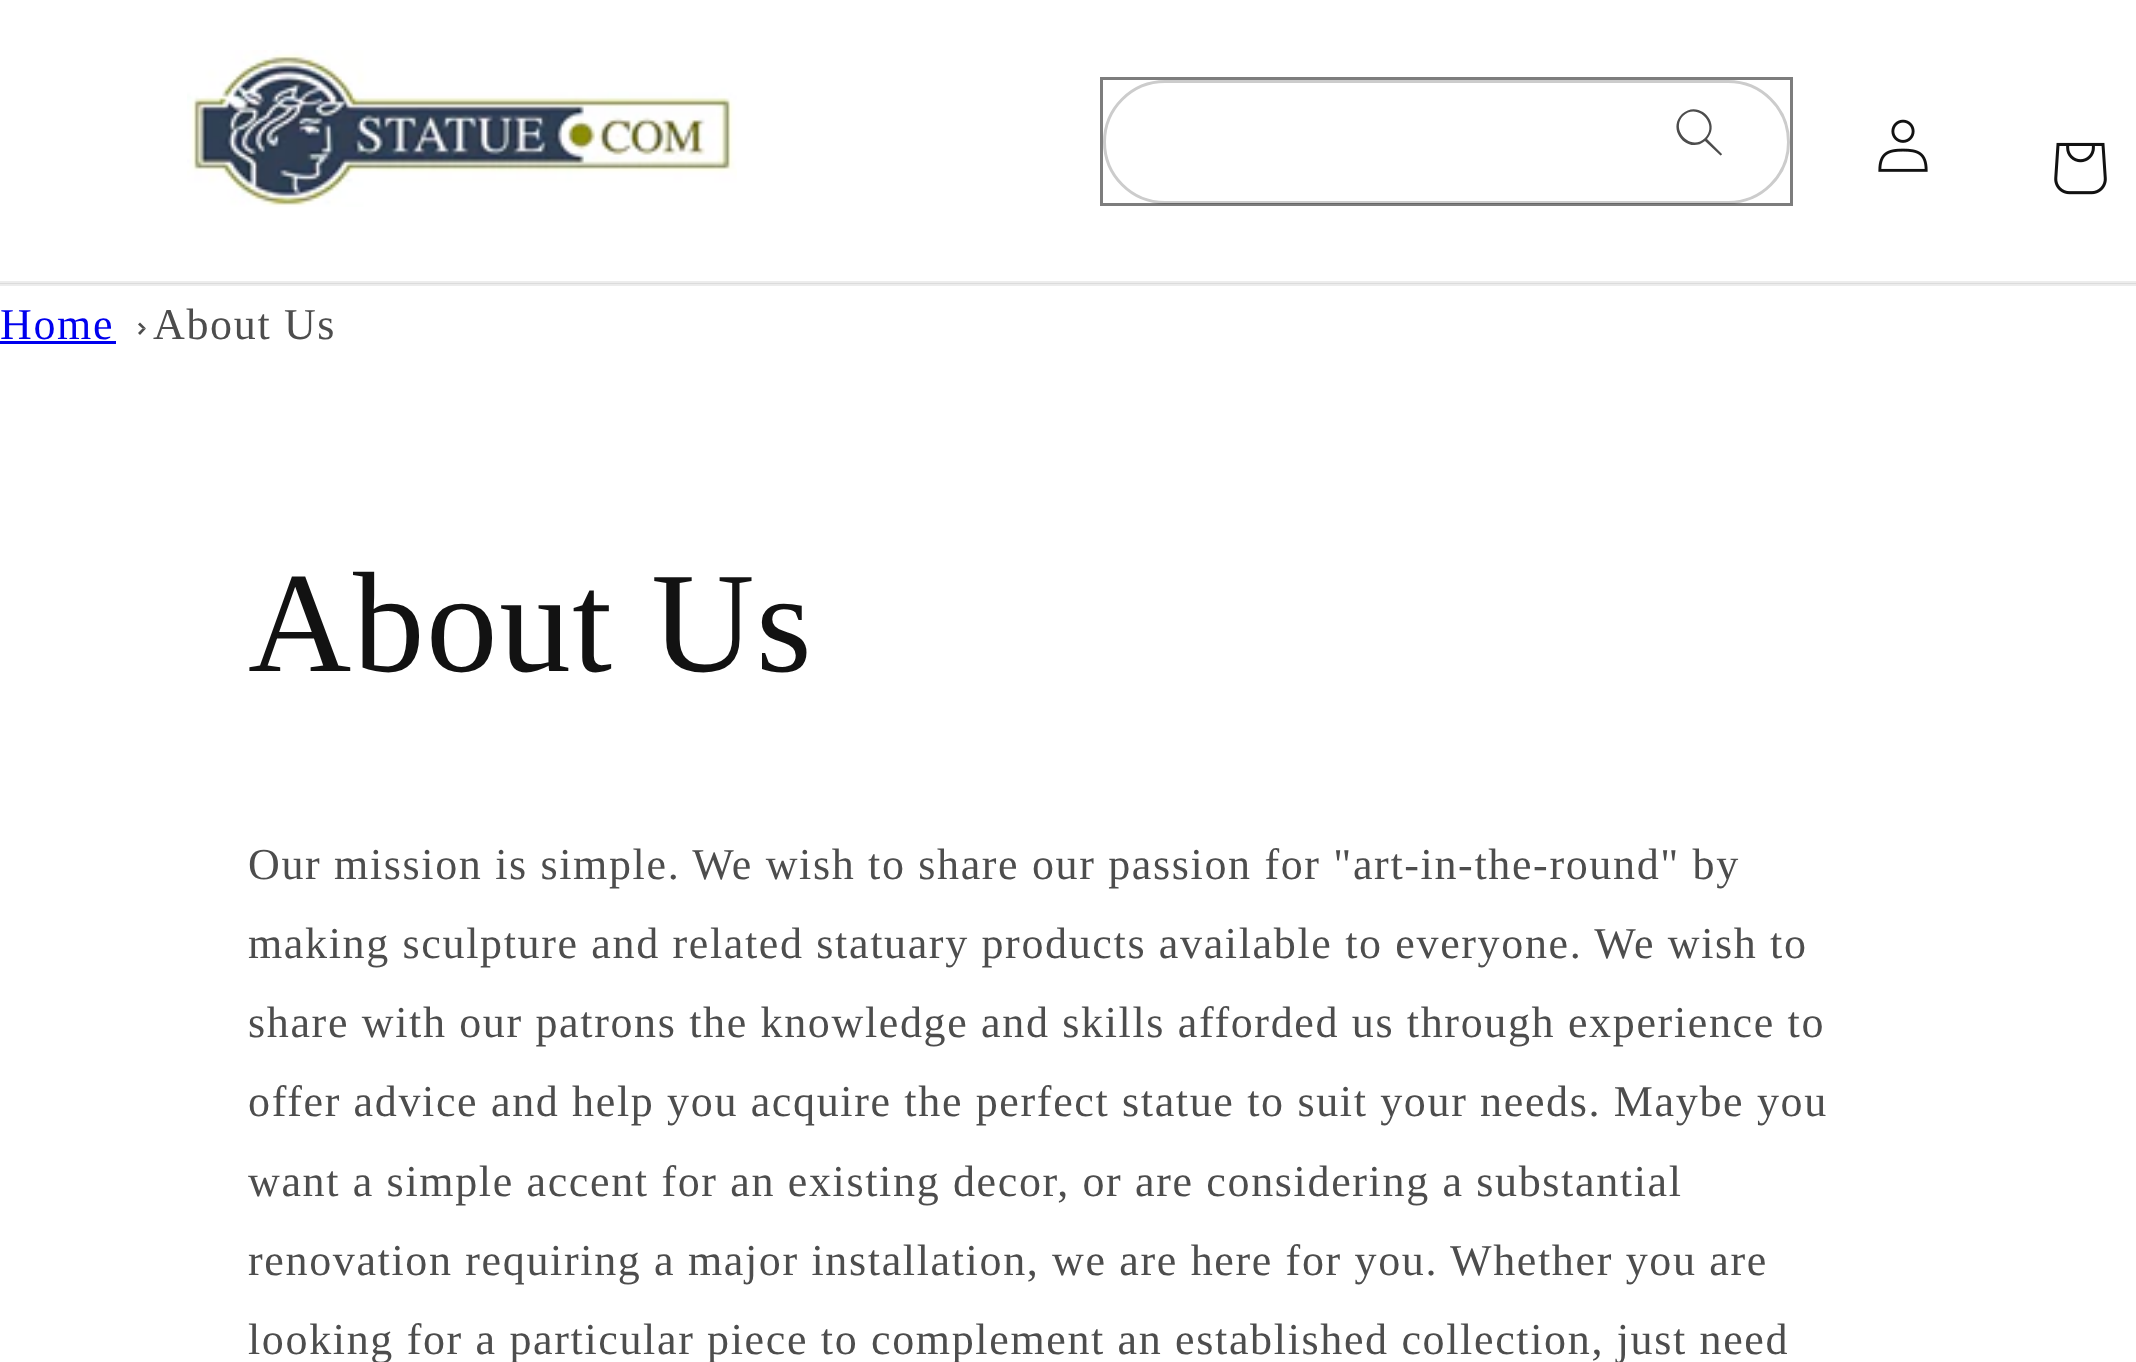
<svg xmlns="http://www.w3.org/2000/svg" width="2136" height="1362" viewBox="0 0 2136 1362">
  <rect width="100%" height="100%" fill="#ffffff"/>
  <rect x="0" y="281" width="2136" height="2" fill="#ececec"/>
  <rect x="0" y="284" width="2136" height="2" fill="#ececec"/>
  <rect x="0" y="283" width="2136" height="1" fill="#dbdbdb"/>
  <image x="187" y="50" width="550" height="157" href="img1.png"/>
  <rect x="1104.5" y="81.5" width="684" height="121" rx="60.5" fill="none" stroke="#cccccc" stroke-width="3"/>
  <path d="M1705 138C1691 152 1670 130 1683 116C1697 102 1719 124 1705 138M1705 141C1688 155 1666 130 1682 114C1698 99 1722 122 1707 139L1722 154C1722 155 1720 156 1720 155Z" fill="#4d4d4d" fill-rule="evenodd"/>
  <rect x="1101.5" y="78.5" width="690" height="126" fill="none" stroke="#121212" stroke-opacity="0.55" stroke-width="3"/>
  <image x="1878" y="119" width="50" height="53" href="img2.png"/>
  <image x="2054" y="142" width="53" height="53" href="img3.png"/>
  <text x="0" y="339" font-family="Liberation Serif" font-size="44" letter-spacing="1.65" fill="#0000ee">Home</text>
  <rect x="0" y="341" width="116" height="3" fill="#0000ee"/>
  <path d="M140 322.5L146 328.5H142.5L138 324.5Z" fill="#4d4d4d"/>
  <path d="M146 328.5L140 335L138 333L142.5 328.5Z" fill="#4d4d4d"/>
  <text x="153" y="339" font-family="Liberation Serif" font-size="44" letter-spacing="1.65" fill="#4d4d4d">About Us</text>
  <text x="248" y="671" font-family="Liberation Serif" font-size="143" letter-spacing="1.65" fill="#121212">About Us</text>
  <text x="248" y="879" font-family="Liberation Serif" font-size="44" letter-spacing="1.65" fill="#4d4d4d">Our mission is simple. We wish to share our passion for "art-in-the-round" by</text>
  <text x="248" y="958" font-family="Liberation Serif" font-size="44" letter-spacing="1.65" fill="#4d4d4d">making sculpture and related statuary products available to everyone. We wish to</text>
  <text x="248" y="1037" font-family="Liberation Serif" font-size="44" letter-spacing="1.65" fill="#4d4d4d">share with our patrons the knowledge and skills afforded us through experience to</text>
  <text x="248" y="1116" font-family="Liberation Serif" font-size="44" letter-spacing="1.65" fill="#4d4d4d">offer advice and help you acquire the perfect statue to suit your needs. Maybe you</text>
  <text x="248" y="1196" font-family="Liberation Serif" font-size="44" letter-spacing="1.65" fill="#4d4d4d">want a simple accent for an existing decor, or are considering a substantial</text>
  <text x="248" y="1275" font-family="Liberation Serif" font-size="44" letter-spacing="1.65" fill="#4d4d4d">renovation requiring a major installation, we are here for you. Whether you are</text>
  <text x="248" y="1354" font-family="Liberation Serif" font-size="44" letter-spacing="1.65" fill="#4d4d4d">looking for a particular piece to complement an established collection, just need</text>
</svg>
